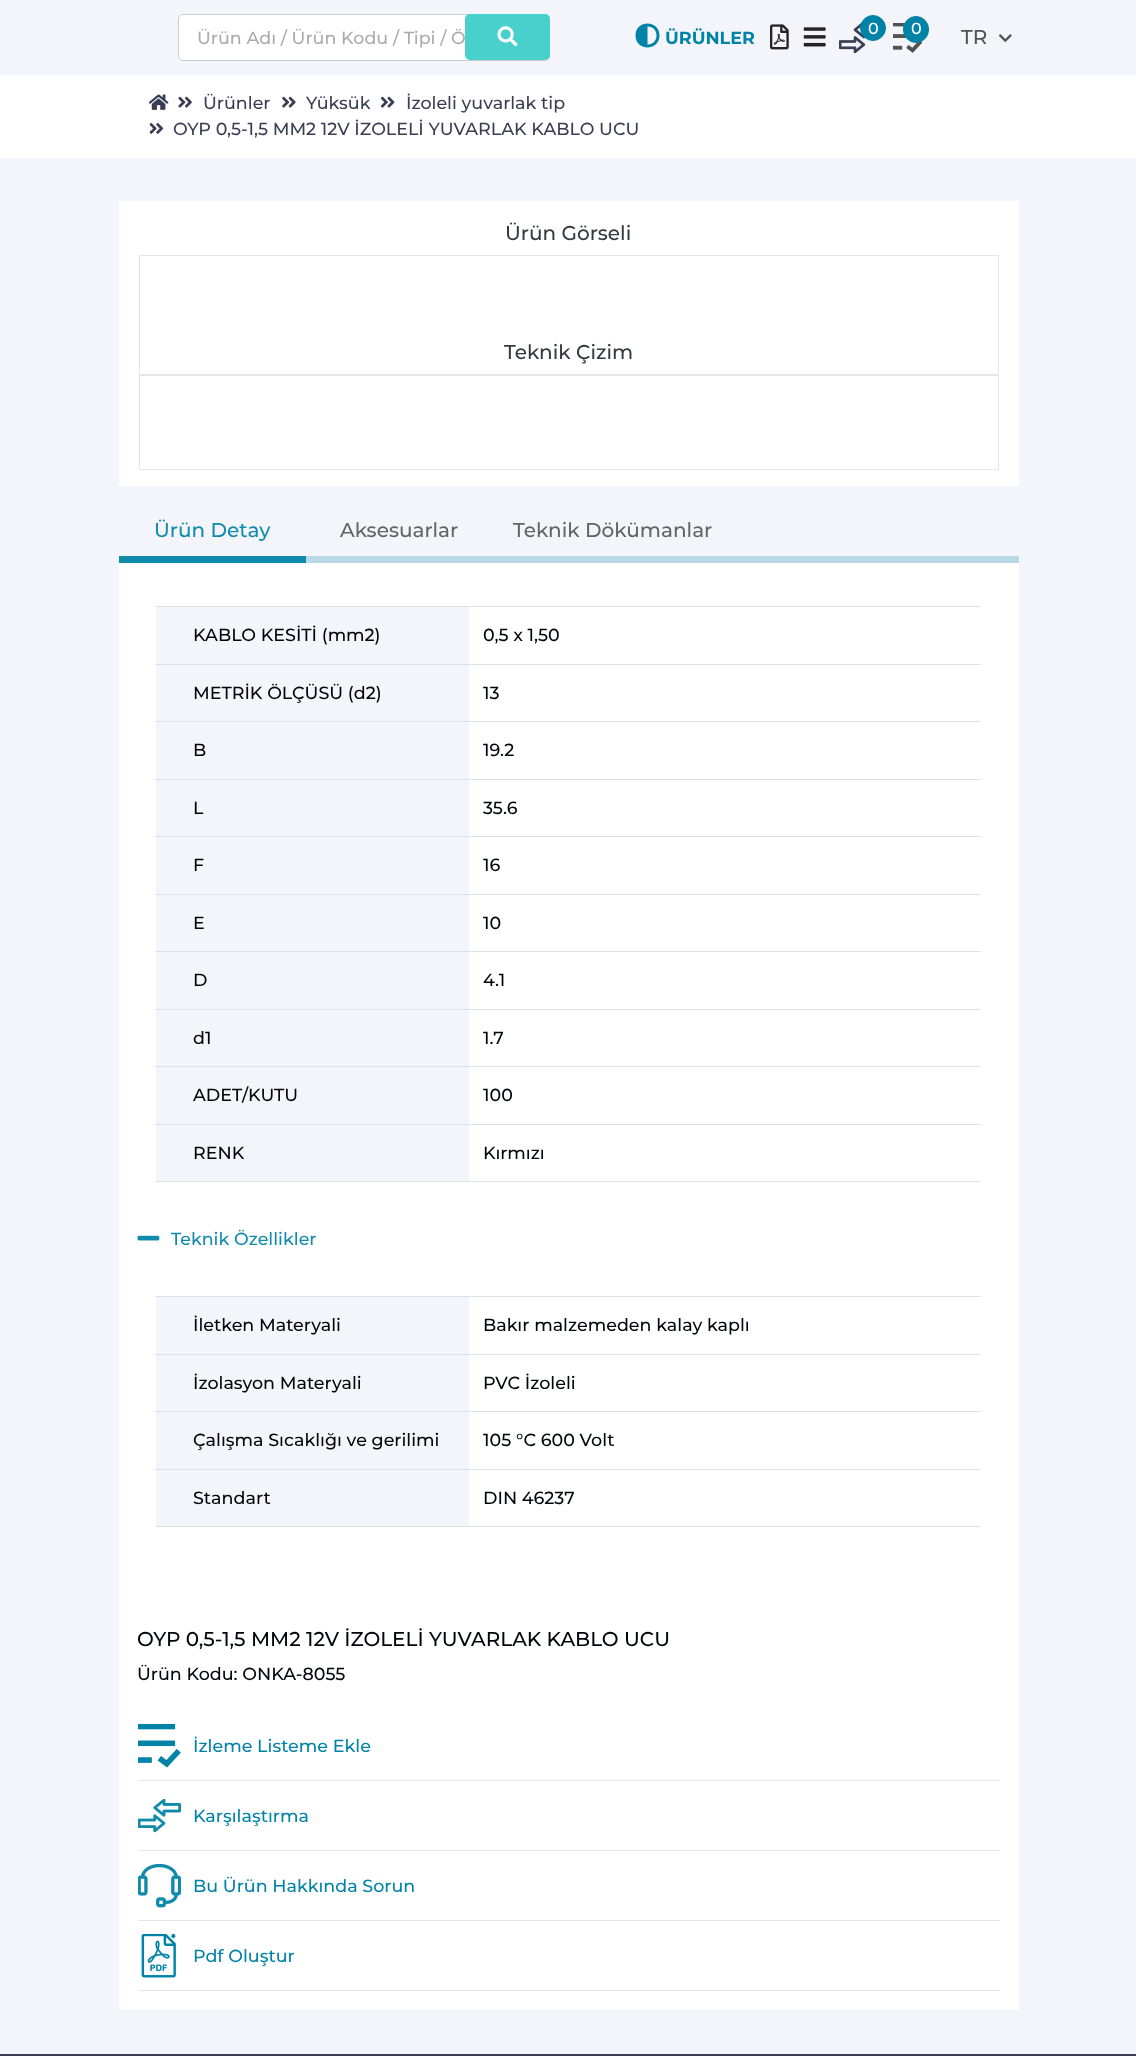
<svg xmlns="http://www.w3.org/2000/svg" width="1136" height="2056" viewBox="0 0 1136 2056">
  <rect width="100%" height="100%" fill="#f4f5fa"/>
  <rect x="306" y="556" width="713" height="7" fill="#b9d9e6"/>
  <rect x="178.5" y="14.5" width="371" height="46" rx="4.5" fill="#ffffff" stroke="#cccccc"/>
  <text x="197" y="44" font-family="Montserrat" font-size="17.5" font-weight="500" fill="#ababab">Ürün Adı / Ürün Kodu / Tipi / Ö</text>
  <rect x="465" y="14" width="85" height="46" rx="5" fill="#48d0cc"/>
  <image x="497" y="26" width="21" height="21" href="img1.png"/>
  <path d="M635.5 35.5C635.5 51.5 659.5 51.5 659.5 35.5C659.5 19.5 635.5 19.5 635.5 35.5ZM647.5 44.5V26.5C659.5 26.5 659.5 44.5 647.5 44.5Z" fill="#0083a7"/>
  <text x="665" y="44" font-family="Montserrat" font-size="17.5" font-weight="bold" fill="#0083a7">ÜRÜNLER</text>
  <image x="770" y="24" width="19" height="26" href="img2.png"/>
  <image x="803" y="27" width="23" height="20" href="img3.png"/>
  <image x="839" y="22" width="27" height="32" href="img4.png"/>
  <circle cx="873" cy="28" r="12.5" fill="#0083a7" stroke="#0083a7"/>
  <text x="868" y="34" font-family="Montserrat" font-size="16" font-weight="500" fill="#ffffff">0</text>
  <image x="893" y="23" width="30" height="30" href="img5.png"/>
  <rect x="903.5" y="16.5" width="25" height="26" rx="12.5" fill="#0083a7" stroke="#0083a7"/>
  <text x="911" y="34" font-family="Montserrat" font-size="16" font-weight="500" fill="#ffffff">0</text>
  <text x="961" y="44" font-family="Montserrat" font-size="20" font-weight="500" fill="#525252">TR</text>
  <image x="999" y="34" width="13" height="8" href="img6.png"/>
  <rect x="0" y="75" width="1136" height="83" fill="#ffffff"/>
  <image x="148" y="94" width="21" height="16" href="img7.png"/>
  <image x="178" y="96" width="14" height="12" href="img8.png"/>
  <text x="203" y="109" font-family="Montserrat" font-size="17.5" font-weight="500" fill="#393e54">Ürünler</text>
  <image x="282" y="96" width="14" height="12" href="img9.png"/>
  <text x="306" y="109" font-family="Montserrat" font-size="17.5" font-weight="500" fill="#393e54">Yüksük</text>
  <image x="380" y="96" width="15" height="12" href="img10.png"/>
  <text x="406" y="109" font-family="Montserrat" font-size="17.5" font-weight="500" fill="#393e54">İzoleli yuvarlak tip</text>
  <image x="149" y="123" width="15" height="11" href="img11.png"/>
  <text x="173" y="135" font-family="Montserrat" font-size="17.5" font-weight="500" fill="#393e54">OYP 0,5-1,5 MM2 12V İZOLELİ YUVARLAK KABLO UCU</text>
  <rect x="119" y="201" width="900" height="285" fill="#ffffff"/>
  <text x="505" y="240" font-family="Montserrat" font-size="20" font-weight="500" fill="#343a40">Ürün Görseli</text>
  <rect x="139.5" y="255.5" width="859" height="119" fill="none" stroke="#e6e6e6"/>
  <text x="504" y="359" font-family="Montserrat" font-size="20" font-weight="500" fill="#343a40">Teknik Çizim</text>
  <rect x="139.5" y="375.5" width="859" height="94" fill="none" stroke="#e6e6e6"/>
  <rect x="119" y="556" width="187" height="7" fill="#118bac"/>
  <text x="154" y="537" font-family="Montserrat" font-size="20" font-weight="500" fill="#118bac">Ürün Detay</text>
  <text x="340" y="537" font-family="Montserrat" font-size="20" font-weight="500" fill="#646464">Aksesuarlar</text>
  <text x="513" y="537" font-family="Montserrat" font-size="20" font-weight="500" fill="#646464">Teknik Dökümanlar</text>
  <rect x="119" y="563" width="900" height="1447" fill="#ffffff"/>
  <rect x="155" y="606" width="826" height="1" fill="#dee2e6"/>
  <rect x="156" y="1181" width="825" height="1" fill="#dee2e6"/>
  <rect x="156" y="607" width="313" height="57" fill="#f4f5fa"/>
  <text x="193" y="641" font-family="Montserrat" font-size="17.5" font-weight="500" fill="#01050b">KABLO KESİTİ (mm2)</text>
  <text x="483" y="641" font-family="Montserrat" font-size="17.5" font-weight="500" fill="#01050b">0,5 x 1,50</text>
  <rect x="156" y="665" width="313" height="56" fill="#f4f5fa"/>
  <text x="193" y="699" font-family="Montserrat" font-size="17.5" font-weight="500" fill="#01050b">METRİK ÖLÇÜSÜ (d2)</text>
  <rect x="155" y="664" width="826" height="1" fill="#dee2e6"/>
  <text x="483" y="699" font-family="Montserrat" font-size="17.5" font-weight="500" fill="#01050b">13</text>
  <rect x="156" y="722" width="313" height="57" fill="#f4f5fa"/>
  <text x="193" y="756" font-family="Montserrat" font-size="17.5" font-weight="500" fill="#01050b">B</text>
  <rect x="155" y="721" width="826" height="1" fill="#dee2e6"/>
  <text x="483" y="756" font-family="Montserrat" font-size="17.5" font-weight="500" fill="#01050b">19.2</text>
  <rect x="156" y="780" width="313" height="56" fill="#f4f5fa"/>
  <text x="193" y="814" font-family="Montserrat" font-size="17.5" font-weight="500" fill="#01050b">L</text>
  <rect x="155" y="779" width="826" height="1" fill="#dee2e6"/>
  <text x="483" y="814" font-family="Montserrat" font-size="17.5" font-weight="500" fill="#01050b">35.6</text>
  <rect x="156" y="837" width="313" height="57" fill="#f4f5fa"/>
  <text x="193" y="871" font-family="Montserrat" font-size="17.5" font-weight="500" fill="#01050b">F</text>
  <rect x="155" y="836" width="826" height="1" fill="#dee2e6"/>
  <text x="483" y="871" font-family="Montserrat" font-size="17.5" font-weight="500" fill="#01050b">16</text>
  <rect x="156" y="895" width="313" height="56" fill="#f4f5fa"/>
  <text x="193" y="929" font-family="Montserrat" font-size="17.5" font-weight="500" fill="#01050b">E</text>
  <rect x="155" y="894" width="826" height="1" fill="#dee2e6"/>
  <text x="483" y="929" font-family="Montserrat" font-size="17.5" font-weight="500" fill="#01050b">10</text>
  <rect x="156" y="952" width="313" height="57" fill="#f4f5fa"/>
  <text x="193" y="986" font-family="Montserrat" font-size="17.5" font-weight="500" fill="#01050b">D</text>
  <rect x="155" y="951" width="826" height="1" fill="#dee2e6"/>
  <text x="483" y="986" font-family="Montserrat" font-size="17.5" font-weight="500" fill="#01050b">4.1</text>
  <rect x="156" y="1010" width="313" height="56" fill="#f4f5fa"/>
  <text x="193" y="1044" font-family="Montserrat" font-size="17.5" font-weight="500" fill="#01050b">d1</text>
  <rect x="155" y="1009" width="826" height="1" fill="#dee2e6"/>
  <text x="483" y="1044" font-family="Montserrat" font-size="17.5" font-weight="500" fill="#01050b">1.7</text>
  <rect x="156" y="1067" width="313" height="57" fill="#f4f5fa"/>
  <text x="193" y="1101" font-family="Montserrat" font-size="17.5" font-weight="500" fill="#01050b">ADET/KUTU</text>
  <rect x="155" y="1066" width="826" height="1" fill="#dee2e6"/>
  <text x="483" y="1101" font-family="Montserrat" font-size="17.5" font-weight="500" fill="#01050b">100</text>
  <rect x="156" y="1125" width="313" height="56" fill="#f4f5fa"/>
  <text x="193" y="1159" font-family="Montserrat" font-size="17.5" font-weight="500" fill="#01050b">RENK</text>
  <rect x="155" y="1124" width="826" height="1" fill="#dee2e6"/>
  <text x="483" y="1159" font-family="Montserrat" font-size="17.5" font-weight="500" fill="#01050b">Kırmızı</text>
  <image x="137" y="1235" width="23" height="6" href="img12.png"/>
  <text x="171" y="1245" font-family="Montserrat" font-size="17.5" font-weight="500" fill="#118bac">Teknik Özellikler</text>
  <rect x="155" y="1296" width="826" height="1" fill="#dee2e6"/>
  <rect x="156" y="1526" width="825" height="1" fill="#dee2e6"/>
  <rect x="156" y="1297" width="313" height="57" fill="#f4f5fa"/>
  <text x="193" y="1331" font-family="Montserrat" font-size="17.5" font-weight="500" fill="#01050b">İletken Materyali</text>
  <text x="483" y="1331" font-family="Montserrat" font-size="17.5" font-weight="500" fill="#01050b">Bakır malzemeden kalay kaplı</text>
  <rect x="156" y="1355" width="313" height="56" fill="#f4f5fa"/>
  <text x="193" y="1389" font-family="Montserrat" font-size="17.5" font-weight="500" fill="#01050b">İzolasyon Materyali</text>
  <rect x="155" y="1354" width="826" height="1" fill="#dee2e6"/>
  <text x="483" y="1389" font-family="Montserrat" font-size="17.5" font-weight="500" fill="#01050b">PVC İzoleli</text>
  <rect x="156" y="1412" width="313" height="57" fill="#f4f5fa"/>
  <text x="193" y="1446" font-family="Montserrat" font-size="17.5" font-weight="500" fill="#01050b">Çalışma Sıcaklığı ve gerilimi</text>
  <rect x="155" y="1411" width="826" height="1" fill="#dee2e6"/>
  <text x="483" y="1446" font-family="Montserrat" font-size="17.5" font-weight="500" fill="#01050b">105 °C 600 Volt</text>
  <rect x="156" y="1470" width="313" height="56" fill="#f4f5fa"/>
  <text x="193" y="1504" font-family="Montserrat" font-size="17.5" font-weight="500" fill="#01050b">Standart</text>
  <rect x="155" y="1469" width="826" height="1" fill="#dee2e6"/>
  <text x="483" y="1504" font-family="Montserrat" font-size="17.5" font-weight="500" fill="#01050b">DIN 46237</text>
  <text x="137" y="1646" font-family="Montserrat" font-size="20" font-weight="500" fill="#01050b">OYP 0,5-1,5 MM2 12V İZOLELİ YUVARLAK KABLO UCU</text>
  <text x="137" y="1680" font-family="Montserrat" font-size="17.5" font-weight="500" fill="#01050b">Ürün Kodu: ONKA-8055</text>
  <rect x="138" y="1780" width="862" height="1" fill="#e6e6e6"/>
  <image x="138" y="1724" width="43" height="44" href="img13.png"/>
  <text x="193" y="1752" font-family="Montserrat" font-size="17.5" font-weight="500" fill="#0083a7">İzleme Listeme Ekle</text>
  <rect x="138" y="1850" width="862" height="1" fill="#e6e6e6"/>
  <image x="138" y="1799" width="43" height="34" href="img14.png"/>
  <text x="193" y="1822" font-family="Montserrat" font-size="17.5" font-weight="500" fill="#0083a7">Karşılaştırma</text>
  <rect x="138" y="1920" width="862" height="1" fill="#e6e6e6"/>
  <image x="138" y="1864" width="43" height="44" href="img15.png"/>
  <text x="193" y="1892" font-family="Montserrat" font-size="17.5" font-weight="500" fill="#0083a7">Bu Ürün Hakkında Sorun</text>
  <rect x="138" y="1990" width="862" height="1" fill="#e6e6e6"/>
  <image x="141" y="1934" width="35" height="44" href="img16.png"/>
  <text x="193" y="1962" font-family="Montserrat" font-size="17.5" font-weight="500" fill="#0083a7">Pdf Oluştur</text>
  <rect x="0" y="2054" width="1136" height="2" fill="#393e54"/>
</svg>
